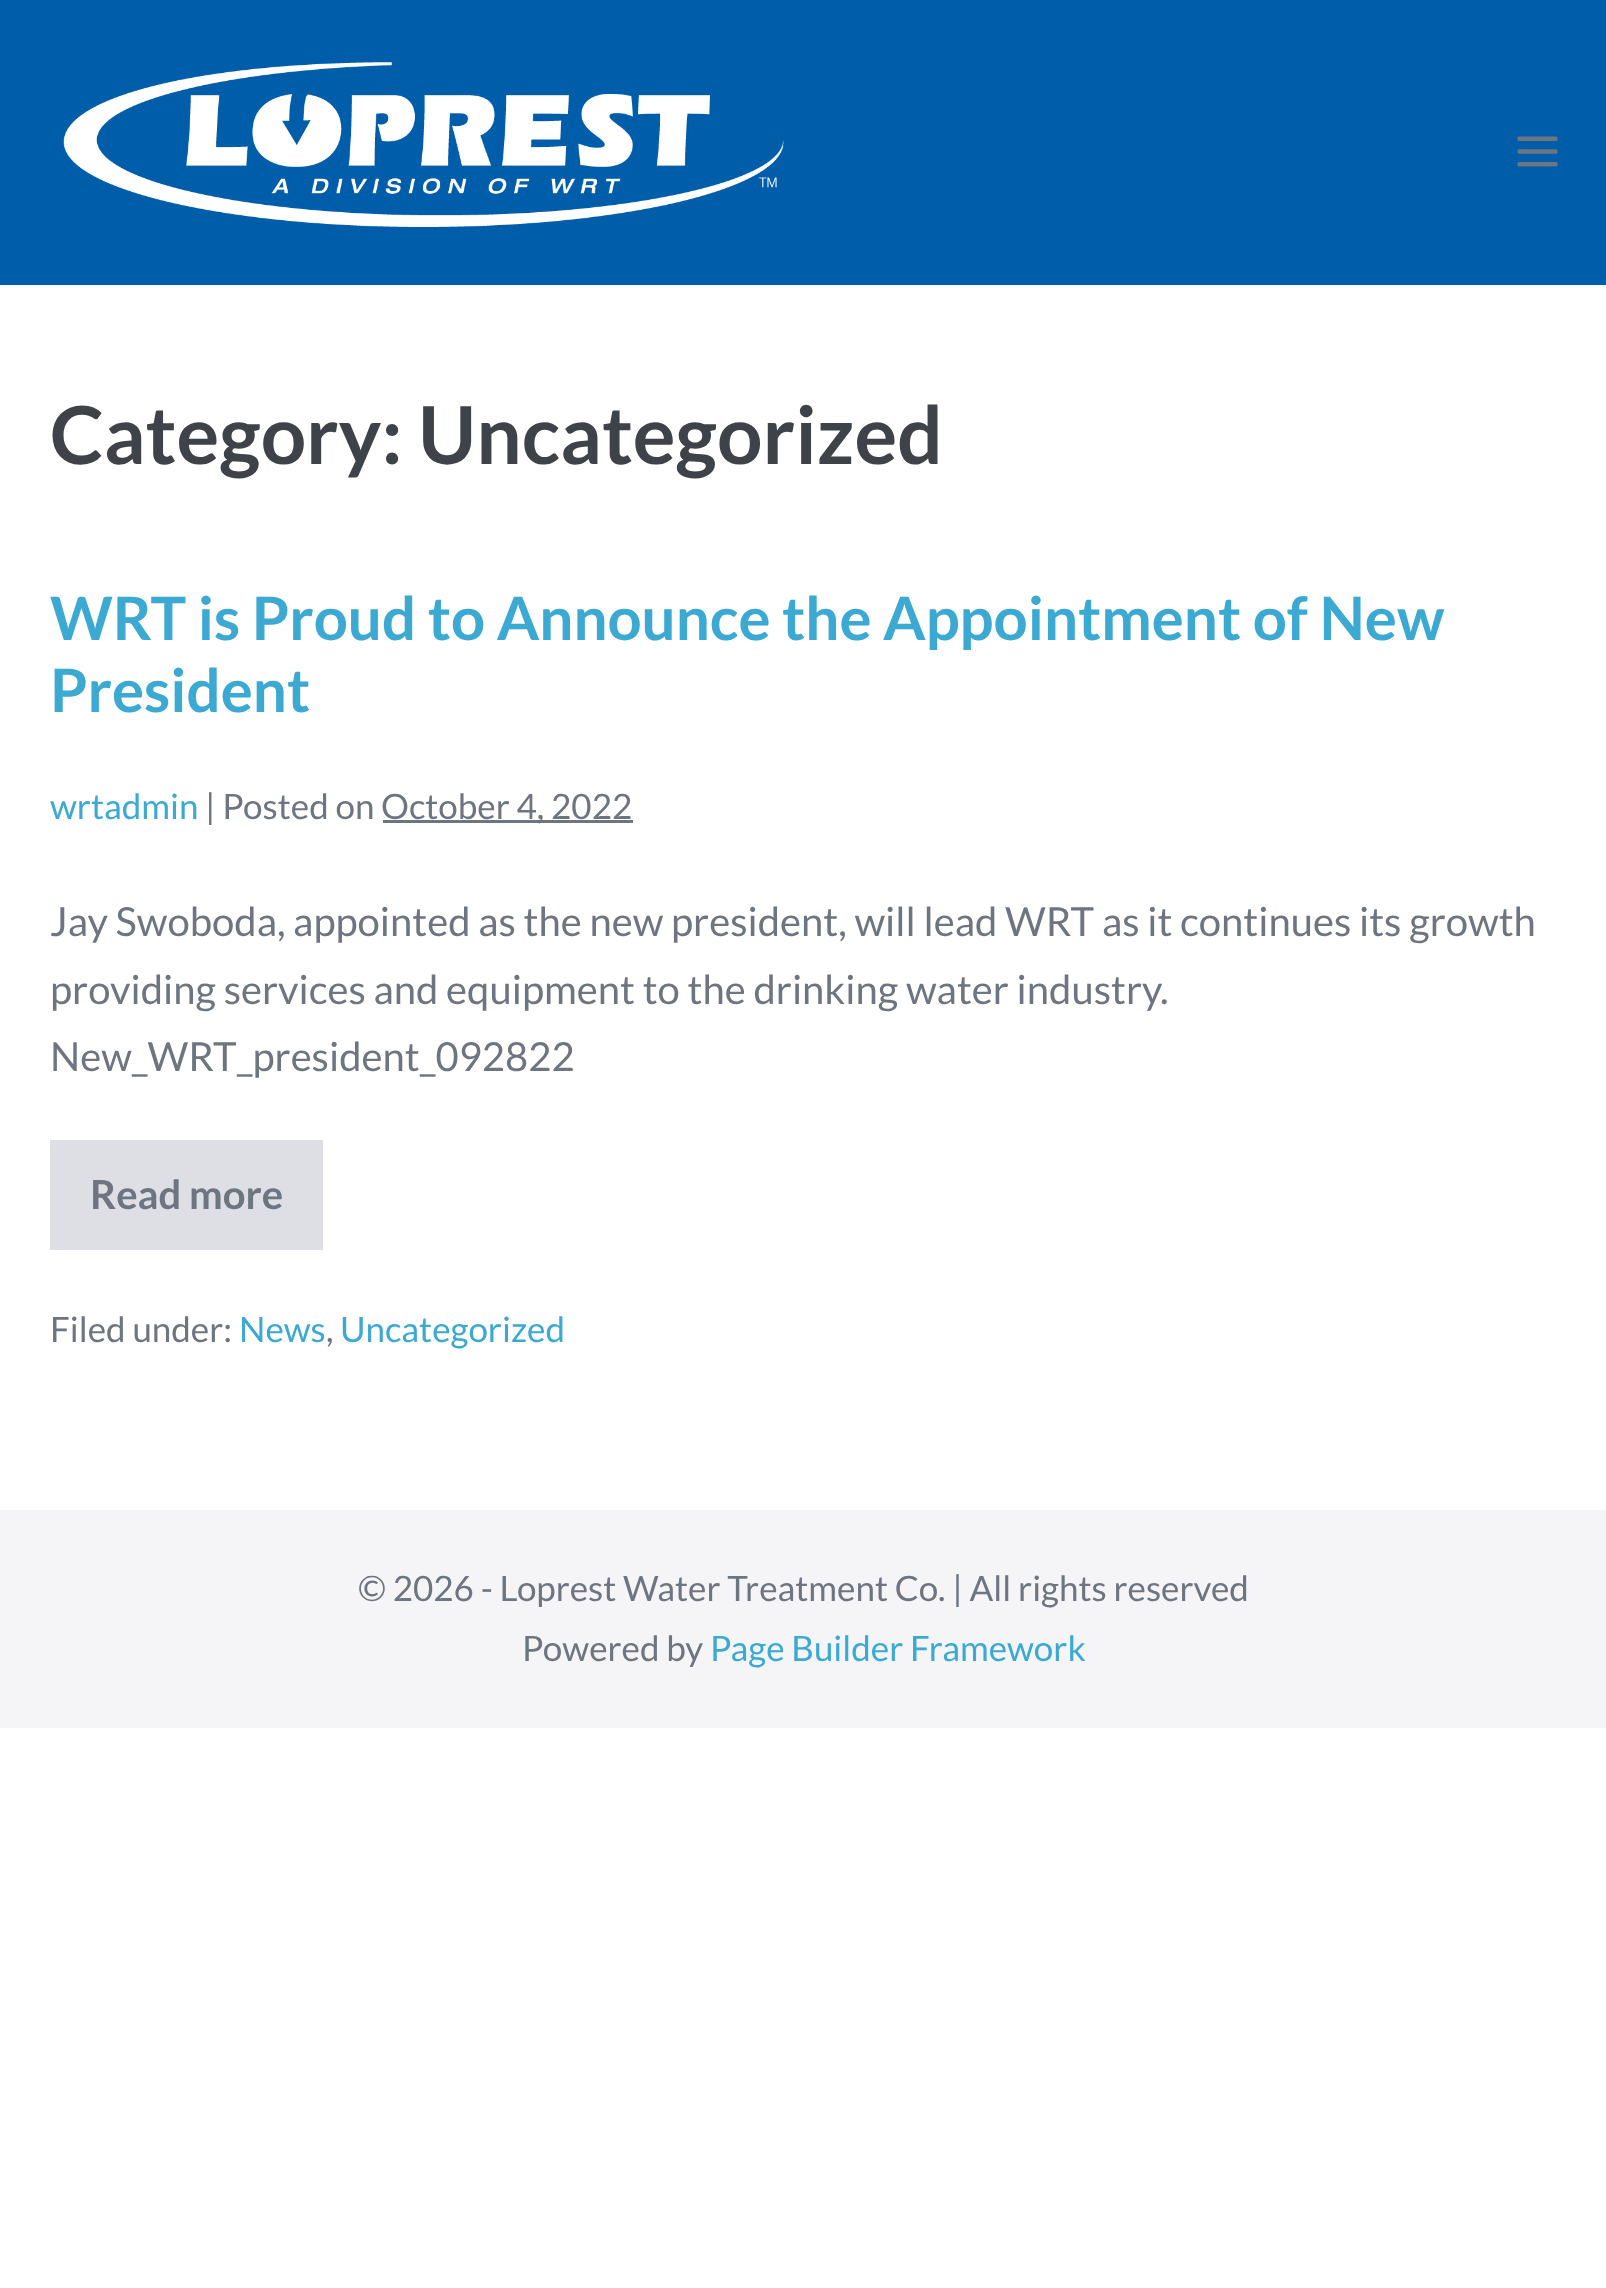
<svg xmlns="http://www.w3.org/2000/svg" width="1606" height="2288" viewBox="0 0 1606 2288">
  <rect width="100%" height="100%" fill="#ffffff"/>
  <rect x="0" y="0" width="1606" height="285" fill="#005daa"/>
  <image x="63" y="62" width="721" height="165" href="img1.png"/>
  <image x="1517" y="136" width="41" height="31" href="img2.png"/>
  <text x="50" y="464" font-family="Lato" font-size="80" font-weight="bold" fill="#3e4349">Category: Uncategorized</text>
  <text x="50" y="640" font-family="Lato" font-size="60" font-weight="bold" fill="#3ba9d2">WRT is Proud to Announce the Appointment of New</text>
  <text x="50" y="712" font-family="Lato" font-size="60" font-weight="bold" fill="#3ba9d2">President</text>
  <text x="50" y="819" font-family="Lato" font-size="35" fill="#3ba9d2">wrtadmin</text>
  <text x="205" y="819" font-family="Lato" font-size="35" fill="#6d7680">| Posted on</text>
  <rect x="383" y="820" width="250" height="3" fill="#6d7680"/>
  <text x="381" y="819" font-family="Lato" font-size="35" fill="#6d7680">October 4, 2022</text>
  <text x="50" y="936" font-family="Lato" font-size="40" fill="#6d7680">Jay Swoboda, appointed as the new president, will lead WRT as it continues its growth</text>
  <text x="50" y="1004" font-family="Lato" font-size="40" fill="#6d7680">providing services and equipment to the drinking water industry.</text>
  <text x="50" y="1071" font-family="Lato" font-size="40" fill="#6d7680">New_WRT_president_092822</text>
  <rect x="50" y="1140" width="273" height="110" fill="#dedee5"/>
  <text x="90" y="1209" font-family="Lato" font-size="40" font-weight="bold" fill="#6d7680">Read more</text>
  <text x="50" y="1342" font-family="Lato" font-size="35" fill="#6d7680">Filed under:</text>
  <text x="239" y="1342" font-family="Lato" font-size="35" fill="#3ba9d2">News</text>
  <text x="326" y="1342" font-family="Lato" font-size="35" fill="#6d7680">,</text>
  <text x="340" y="1342" font-family="Lato" font-size="35" fill="#3ba9d2">Uncategorized</text>
  <rect x="0" y="1510" width="1606" height="218" fill="#f5f5f7"/>
  <text x="358" y="1601" font-family="Lato" font-size="35" fill="#6d7680">© 2026 - Loprest Water Treatment Co. | All rights reserved</text>
  <text x="522" y="1661" font-family="Lato" font-size="35" fill="#6d7680">Powered by</text>
  <text x="710" y="1661" font-family="Lato" font-size="35" fill="#3ba9d2">Page Builder Framework</text>
</svg>
